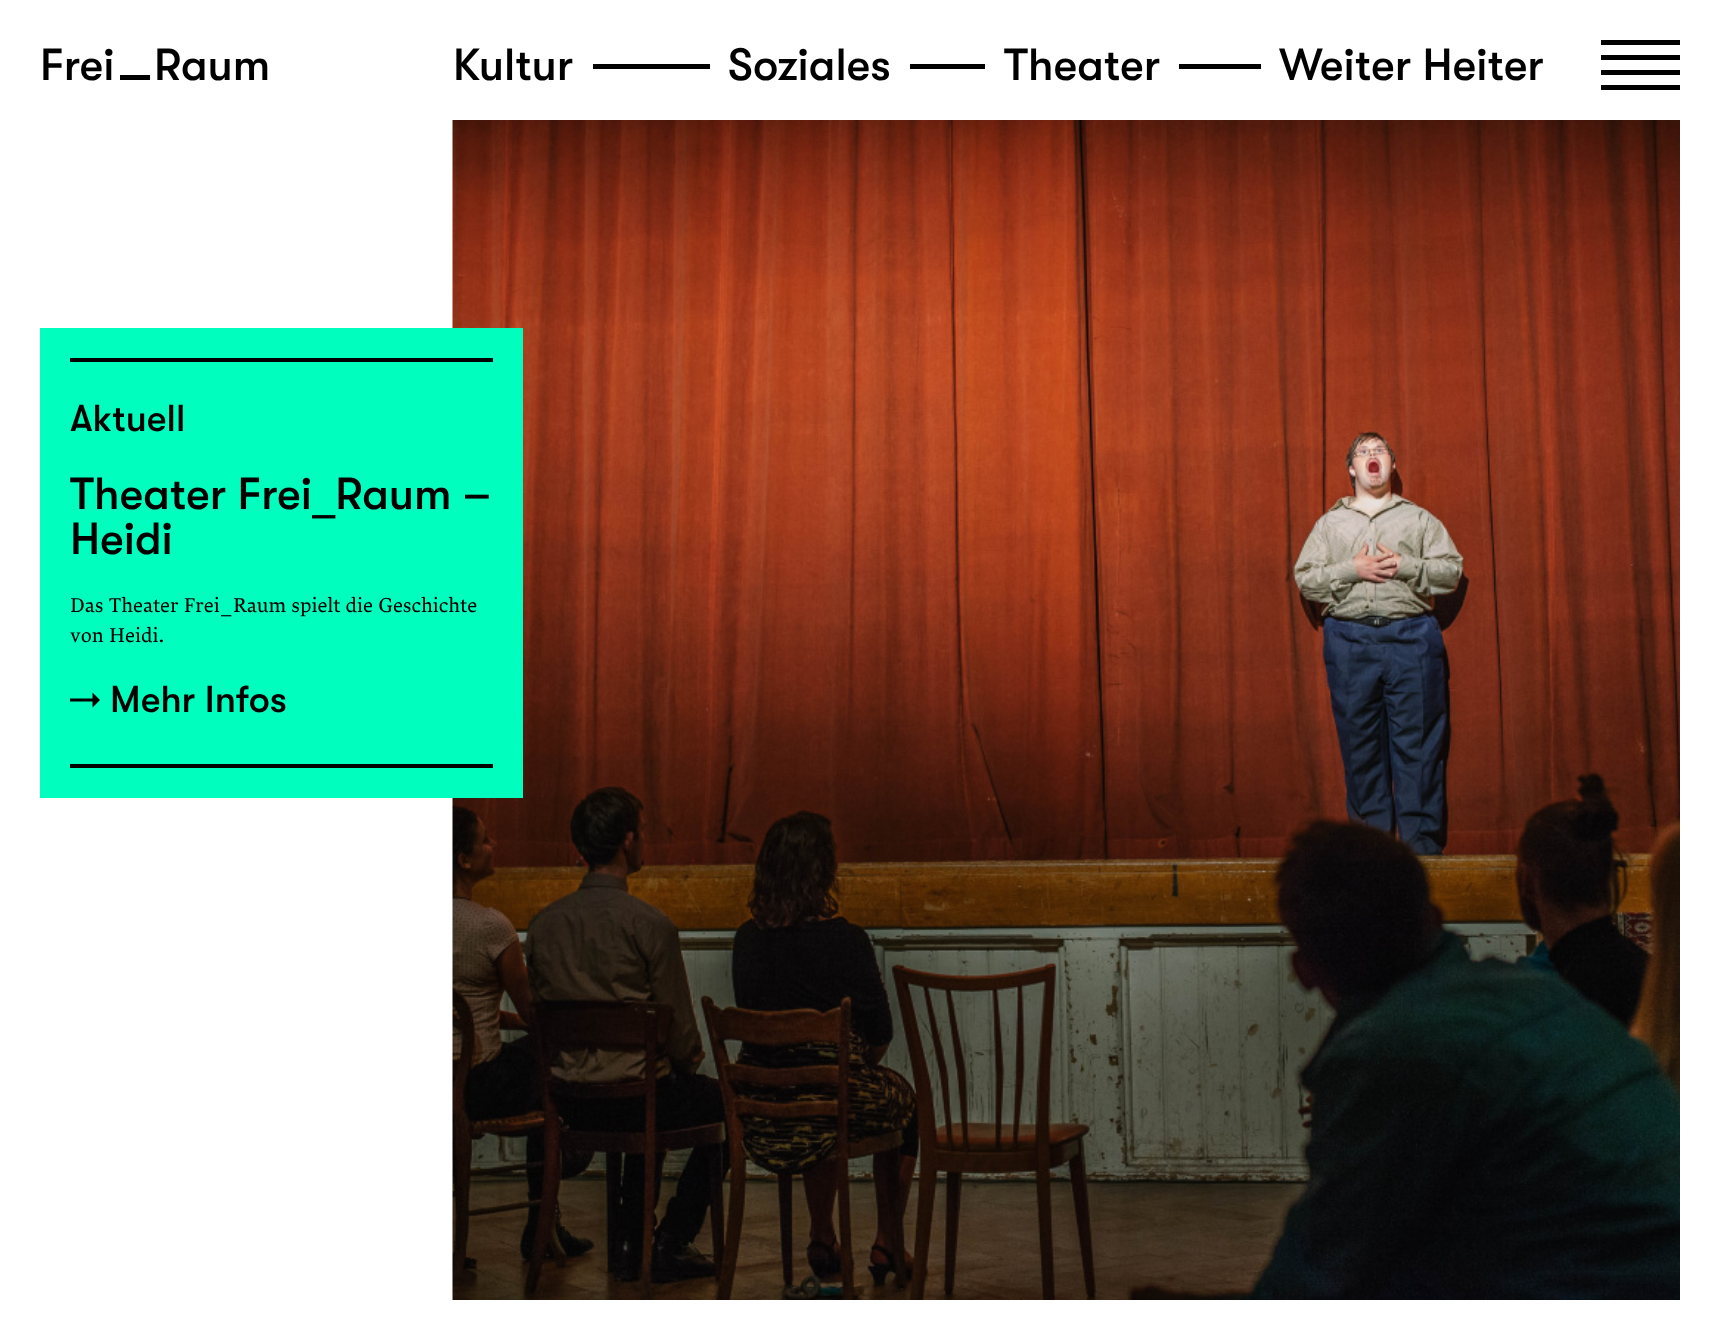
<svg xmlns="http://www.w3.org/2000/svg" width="1719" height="1339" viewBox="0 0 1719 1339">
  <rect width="100%" height="100%" fill="#ffffff"/>
  <text x="40" y="80" font-family="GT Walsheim" font-size="45" font-weight="500" fill="#000000">Frei</text>
  <rect x="120" y="75" width="30" height="5" fill="#000000"/>
  <text x="154" y="80" font-family="GT Walsheim" font-size="45" font-weight="500" fill="#000000">Raum</text>
  <text x="453" y="80" font-family="GT Walsheim" font-size="45" font-weight="500" fill="#000000">Kultur</text>
  <rect x="593" y="64" width="117" height="5" fill="#000000"/>
  <text x="728" y="80" font-family="GT Walsheim" font-size="45" font-weight="500" fill="#000000">Soziales</text>
  <rect x="910" y="64" width="75" height="5" fill="#000000"/>
  <text x="1004" y="80" font-family="GT Walsheim" font-size="45" font-weight="500" fill="#000000">Theater</text>
  <rect x="1179" y="64" width="82" height="5" fill="#000000"/>
  <text x="1279" y="80" font-family="GT Walsheim" font-size="45" font-weight="500" fill="#000000">Weiter Heiter</text>
  <image x="452" y="120" width="1228" height="1180" href="img1.png"/>
  <rect x="40" y="328" width="483" height="470" fill="#00ffbe"/>
  <rect x="70" y="358" width="423" height="4" fill="#000000"/>
  <text x="70" y="431" font-family="GT Walsheim" font-size="37.5" font-weight="500" fill="#000000">Aktuell</text>
  <text x="70" y="509" font-family="GT Walsheim" font-size="45" font-weight="500" fill="#000000">Theater Frei_Raum –</text>
  <text x="70" y="554" font-family="GT Walsheim" font-size="45" font-weight="500" fill="#000000">Heidi</text>
  <text x="70" y="612" font-family="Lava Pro" font-size="20" fill="#000000">Das Theater Frei_Raum spielt die Geschichte</text>
  <text x="70" y="642" font-family="Lava Pro" font-size="20" fill="#000000">von Heidi.</text>
  <path d="M92.5 707.5V701.5H70V698.5H92.5V692.5L100 700Z" fill="#000000"/>
  <text x="110" y="712" font-family="GT Walsheim" font-size="37.5" font-weight="500" fill="#000000">Mehr Infos</text>
  <rect x="70" y="764" width="423" height="4" fill="#000000"/>
  <rect x="1601" y="55" width="79" height="5" fill="#000000"/>
  <rect x="1601" y="40" width="79" height="5" fill="#000000"/>
  <rect x="1601" y="70" width="79" height="5" fill="#000000"/>
  <rect x="1601" y="85" width="79" height="5" fill="#000000"/>
</svg>
